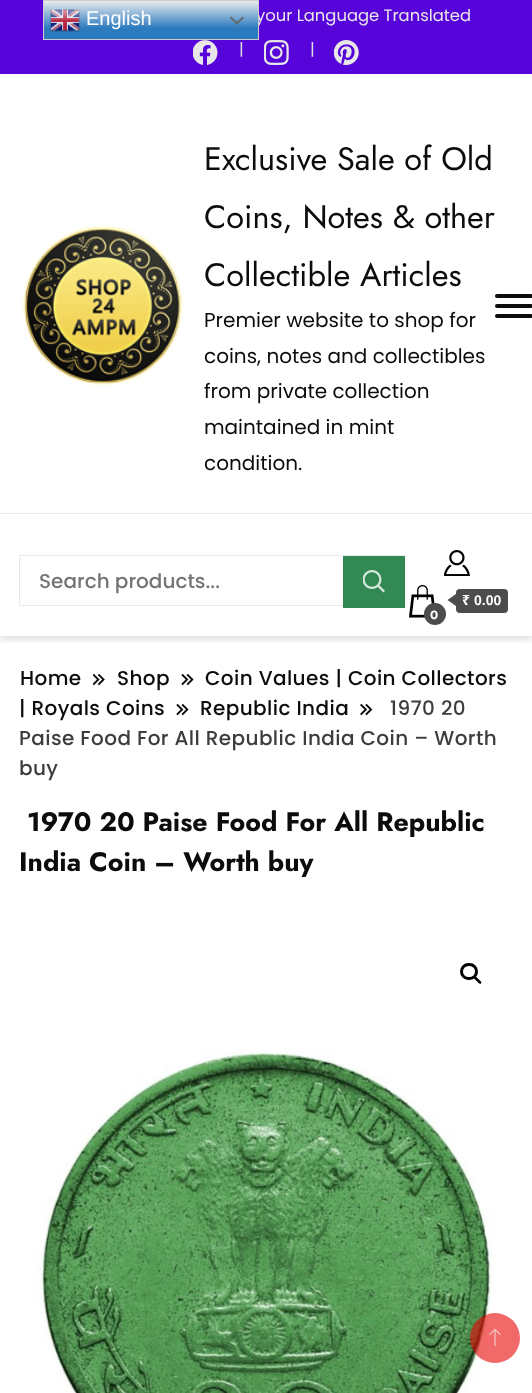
<svg xmlns="http://www.w3.org/2000/svg" width="532" height="1393" viewBox="0 0 532 1393">
  <defs>
    <clipPath id="clip1"><rect x="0" y="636" width="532" height="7"/></clipPath>
    <filter id="blur1" x="-50%" y="-200%" width="200%" height="500%"><feGaussianBlur stdDeviation="4"/></filter>
    <linearGradient id="g1" gradientUnits="userSpaceOnUse" x1="151" y1="0" x2="151" y2="40"><stop offset="0" stop-color="#efefef"/><stop offset="0.7" stop-color="#2d7bbf"/></linearGradient>
  </defs>
  <rect width="100%" height="100%" fill="#ffffff"/>
  <g clip-path="url(#clip1)">
    <rect x="0" y="3" width="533" height="636" fill="#000000" fill-opacity="0.15" filter="url(#blur1)"/>
  </g>
  <rect x="0" y="0" width="532" height="74" fill="#5704db"/>
  <text x="256" y="21" font-family="Poppins" font-size="16.4" fill="#e7e7e7">your Language Translated</text>
  <image x="193" y="40" width="25" height="25" href="img1.png"/>
  <text x="239" y="55" font-family="Poppins" font-size="16.4" fill="#dddddd">|</text>
  <image x="264" y="40" width="25" height="25" href="img2.png"/>
  <text x="310" y="55" font-family="Poppins" font-size="16.4" fill="#dddddd">|</text>
  <image x="334" y="40" width="25" height="25" href="img3.png"/>
  <image x="22" y="225" width="162" height="161" href="img4.png"/>
  <text x="204" y="170" font-family="Jost" font-size="32.5" fill="#0c0c0c">Exclusive Sale of Old</text>
  <text x="204" y="228" font-family="Jost" font-size="32.5" fill="#0c0c0c">Coins, Notes &amp; other</text>
  <text x="204" y="286" font-family="Jost" font-size="32.5" fill="#0c0c0c">Collectible Articles</text>
  <text x="204" y="327" font-family="Poppins" font-size="20" fill="#0c0c0c">Premier website to shop for</text>
  <text x="204" y="363" font-family="Poppins" font-size="20" fill="#0c0c0c">coins, notes and collectibles</text>
  <text x="204" y="398" font-family="Poppins" font-size="20" fill="#0c0c0c">from private collection</text>
  <text x="204" y="434" font-family="Poppins" font-size="20" fill="#0c0c0c">maintained in mint</text>
  <text x="204" y="470" font-family="Poppins" font-size="20" fill="#0c0c0c">condition.</text>
  <rect x="495" y="294" width="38" height="4" rx="2" fill="#0c0c0c"/>
  <rect x="495" y="304" width="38" height="4" rx="2" fill="#0c0c0c"/>
  <rect x="495" y="314" width="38" height="4" rx="2" fill="#0c0c0c"/>
  <rect x="0" y="513" width="532" height="1" fill="#e8e9e9"/>
  <rect x="19.5" y="555.5" width="385" height="50" fill="none" stroke="#e9e9e9"/>
  <text x="39" y="588" font-family="Poppins" font-size="20" font-weight="500" fill="#757575">Search products...</text>
  <rect x="343" y="556" width="62" height="52" fill="#006b29" fill-opacity="0.8"/>
  <image x="363" y="570" width="22" height="23" href="img5.png"/>
  <image x="444" y="550" width="26" height="26" href="img6.png"/>
  <image x="409" y="585" width="26" height="33" href="img7.png"/>
  <rect x="456" y="589" width="52" height="24" rx="4" fill="#4c4c4c"/>
  <path d="M456 594V606L447.5 600Z" fill="#4c4c4c"/>
  <text x="462" y="605" font-family="Noto Sans" font-size="14" font-weight="bold" fill="#ffffff">₹</text>
  <text x="474" y="605" font-family="Liberation Sans" font-size="14" font-weight="bold" fill="#ffffff">0.00</text>
  <circle cx="435" cy="614" r="11" fill="#4c4c4c"/>
  <text x="430" y="619" font-family="Montserrat" font-size="12" font-weight="bold" fill="#ffffff">0</text>
  <text x="20" y="685" font-family="Poppins" font-size="20" font-weight="500" letter-spacing="0.4" fill="#0c0c0c">Home</text>
  <image x="93" y="674" width="12" height="12" href="img8.png"/>
  <text x="117" y="685" font-family="Poppins" font-size="20" font-weight="500" letter-spacing="0.4" fill="#0c0c0c">Shop</text>
  <image x="181" y="674" width="13" height="12" href="img9.png"/>
  <text x="205" y="685" font-family="Poppins" font-size="20" font-weight="500" letter-spacing="0.4" fill="#0c0c0c">Coin Values | Coin Collectors</text>
  <text x="19" y="715" font-family="Poppins" font-size="20" font-weight="500" letter-spacing="0.4" fill="#0c0c0c">| Royals Coins</text>
  <image x="176" y="704" width="13" height="12" href="img9.png"/>
  <text x="200" y="715" font-family="Poppins" font-size="20" font-weight="500" letter-spacing="0.4" fill="#0c0c0c">Republic India</text>
  <image x="360" y="704" width="13" height="12" href="img10.png"/>
  <text x="390" y="715" font-family="Poppins" font-size="20" font-weight="500" letter-spacing="0.4" fill="#3d3d3d">1970 20</text>
  <text x="19" y="745" font-family="Poppins" font-size="20" font-weight="500" letter-spacing="0.4" fill="#3d3d3d">Paise Food For All Republic India Coin – Worth</text>
  <text x="19" y="775" font-family="Poppins" font-size="20" font-weight="500" letter-spacing="0.4" fill="#3d3d3d">buy</text>
  <text x="27" y="831" font-family="Jost" font-size="26.7" font-weight="bold" fill="#0c0c0c">1970 20 Paise Food For All Republic</text>
  <text x="19" y="871" font-family="Jost" font-size="26.7" font-weight="bold" fill="#0c0c0c">India Coin – Worth buy</text>
  <rect x="461.5" y="964.5" width="15" height="14" rx="7" fill="none" stroke="#000000" stroke-width="3"/>
  <path d="M474 976.5C475.5 975 477.5 978.5 478.5 979C479 980 482.5 982 481 983.5C479.5 985 477.5 981.5 476.5 981C476 980 472.5 978 474 976.5Z" fill="#000000"/>
  <image x="32" y="1050" width="462" height="343" href="img11.png"/>
  <rect x="44" y="1" width="214" height="38" fill="url(#g1)"/>
  <rect x="43.5" y="0.5" width="215" height="39" fill="none" stroke="#cccccc"/>
  <image x="50" y="9" width="30" height="23" href="img12.png"/>
  <text x="86" y="25" font-family="Liberation Sans" font-size="20" fill="#ffffff">English</text>
  <image x="230" y="16" width="14" height="9" href="img13.png"/>
  <circle cx="495" cy="1338" r="25" fill="#e80505" fill-opacity="0.6"/>
  <image x="489" y="1328" width="12" height="19" href="img14.png"/>
</svg>
